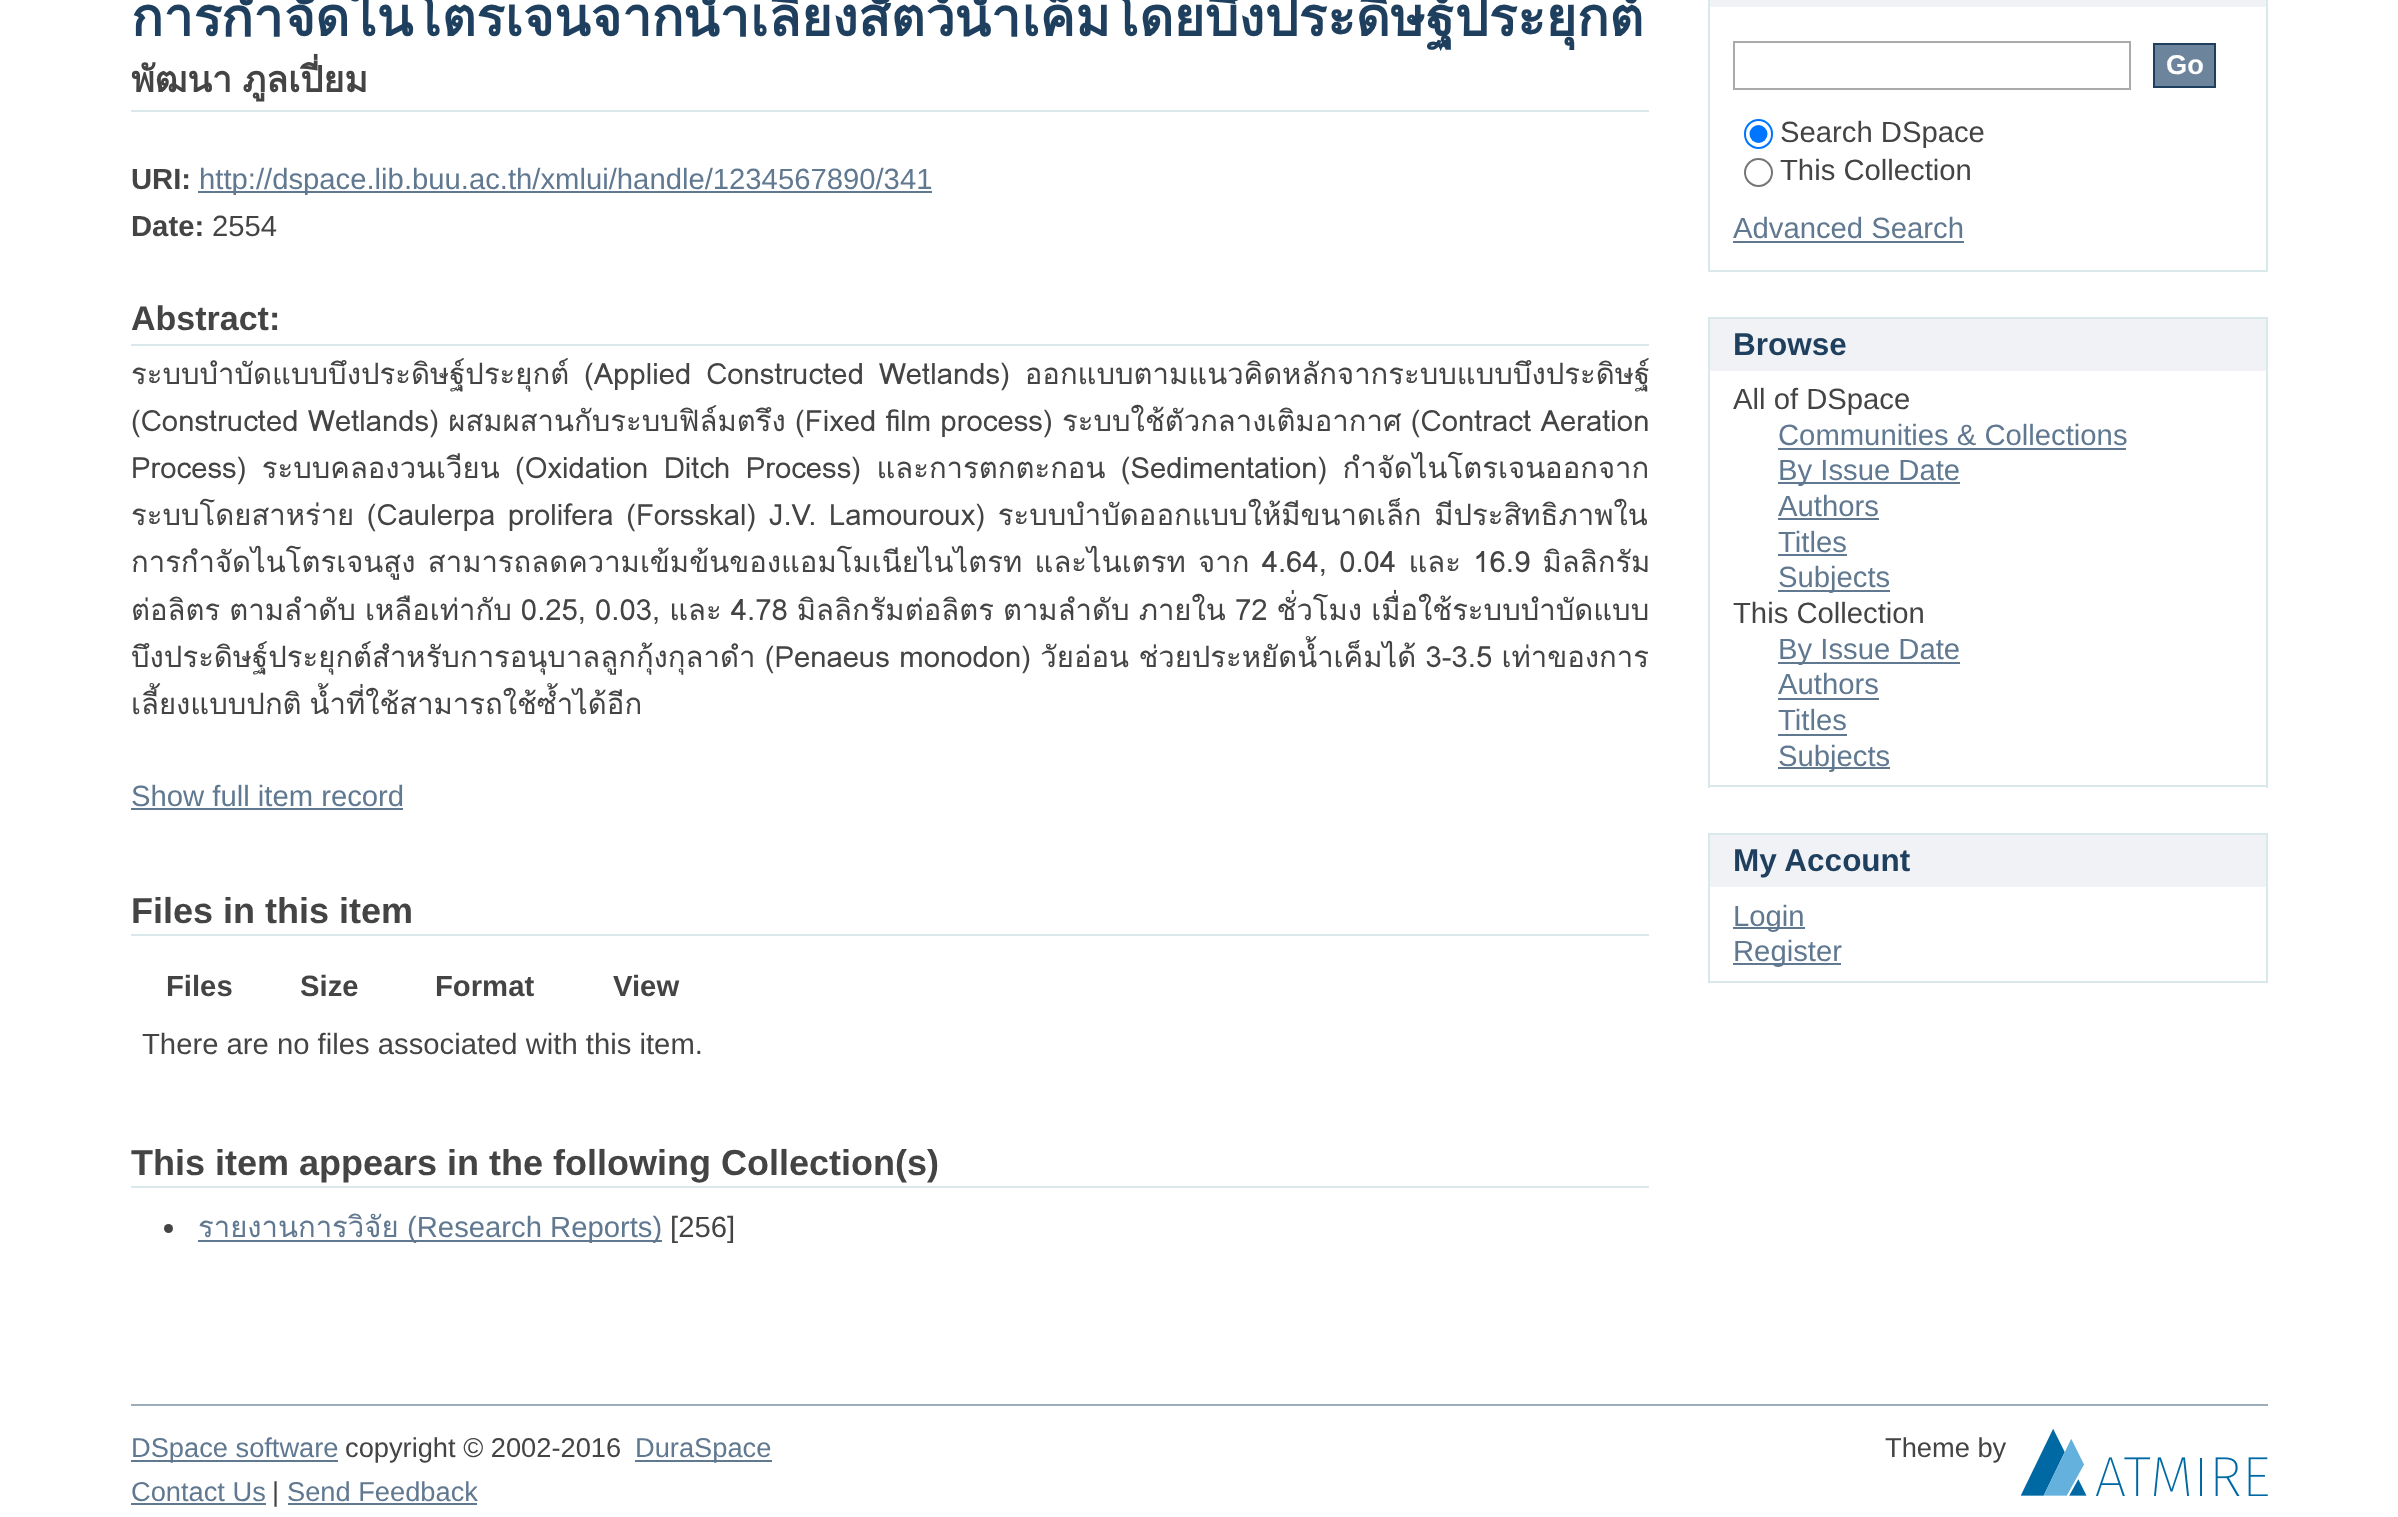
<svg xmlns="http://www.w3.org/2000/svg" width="2398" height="1517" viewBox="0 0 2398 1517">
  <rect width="100%" height="100%" fill="#ffffff"/>
  <text x="131" y="36" font-family="Loma" font-size="53.25" font-weight="bold" fill="#1f3f5e">การกำจัดไนโตรเจนจากน้ำเลี้ยงสัตว์น้ำเค็มโดยบึงประดิษฐ์ประยุกต์</text>
  <rect x="131" y="110" width="1518" height="2" fill="#d8e8eb"/>
  <text x="131" y="92" word-spacing="-2" font-family="Loma" font-size="36" font-weight="bold" fill="#444444">พัฒนา ภูลเปี่ยม</text>
  <text x="131" y="189" font-family="Liberation Sans" font-size="29.25" font-weight="bold" fill="#444444">URI:</text>
  <rect x="198" y="191" width="734" height="2" fill="#607890"/>
  <text x="199" y="189" font-family="Liberation Sans" font-size="29.25" fill="#607890">http://dspace.lib.buu.ac.th/xmlui/handle/1234567890/341</text>
  <text x="131" y="236" font-family="Liberation Sans" font-size="29.25" font-weight="bold" fill="#444444">Date:</text>
  <text x="212" y="236" font-family="Liberation Sans" font-size="29.25" fill="#444444">2554</text>
  <rect x="131" y="344" width="1518" height="2" fill="#d8e8eb"/>
  <text x="131" y="330" font-family="Liberation Sans" font-size="34" font-weight="bold" fill="#444444">Abstract:</text>
  <text x="131" y="384" word-spacing="5" font-family="Loma" font-size="29.25" fill="#444444">ระบบบำบัดแบบบึงประดิษฐ์ประยุกต์ (Applied Constructed Wetlands) ออกแบบตามแนวคิดหลักจากระบบแบบบึงประดิษฐ์</text>
  <text x="131" y="431" word-spacing="-0.5" font-family="Loma" font-size="29.25" fill="#444444">(Constructed Wetlands) ผสมผสานกับระบบฟิล์มตรึง (Fixed film process) ระบบใช้ตัวกลางเติมอากาศ (Contract Aeration</text>
  <text x="131" y="478" word-spacing="5.5" font-family="Loma" font-size="29.25" fill="#444444">Process) ระบบคลองวนเวียน (Oxidation Ditch Process) และการตกตะกอน (Sedimentation) กำจัดไนโตรเจนออกจาก</text>
  <text x="131" y="525" word-spacing="2.75" font-family="Loma" font-size="29.25" fill="#444444">ระบบโดยสาหร่าย (Caulerpa prolifera (Forsskal) J.V. Lamouroux) ระบบบำบัดออกแบบให้มีขนาดเล็ก มีประสิทธิภาพใน</text>
  <text x="131" y="572" word-spacing="2.5" font-family="Loma" font-size="29.25" fill="#444444">การกำจัดไนโตรเจนสูง สามารถลดความเข้มข้นของแอมโมเนียไนไตรท และไนเตรท จาก 4.64, 0.04 และ 16.9 มิลลิกรัม</text>
  <text x="131" y="620" word-spacing="-0.75" font-family="Loma" font-size="29.25" fill="#444444">ต่อลิตร ตามลำดับ เหลือเท่ากับ 0.25, 0.03, และ 4.78 มิลลิกรัมต่อลิตร ตามลำดับ ภายใน 72 ชั่วโมง เมื่อใช้ระบบบำบัดแบบ</text>
  <text x="131" y="667" word-spacing="-0.5" font-family="Loma" font-size="29.25" fill="#444444">บึงประดิษฐ์ประยุกต์สำหรับการอนุบาลลูกกุ้งกุลาดำ (Penaeus monodon) วัยอ่อน ช่วยประหยัดน้ำเค็มได้ 3-3.5 เท่าของการ</text>
  <text x="131" y="714" word-spacing="-2" font-family="Loma" font-size="29.25" fill="#444444">เลี้ยงแบบปกติ น้ำที่ใช้สามารถใช้ซ้ำได้อีก</text>
  <text x="131" y="806" font-family="Liberation Sans" font-size="29.25" fill="#607890">Show full item record</text>
  <rect x="131" y="808" width="272" height="2" fill="#607890"/>
  <rect x="131" y="934" width="1518" height="2" fill="#d8e8eb"/>
  <text x="131" y="923" font-family="Liberation Sans" font-size="36" font-weight="bold" fill="#444444">Files in this item</text>
  <text x="166" y="996" font-family="Liberation Sans" font-size="29.25" font-weight="bold" fill="#444444">Files</text>
  <text x="300" y="996" font-family="Liberation Sans" font-size="29.25" font-weight="bold" fill="#444444">Size</text>
  <text x="435" y="996" font-family="Liberation Sans" font-size="29.25" font-weight="bold" fill="#444444">Format</text>
  <text x="613" y="996" font-family="Liberation Sans" font-size="29.25" font-weight="bold" fill="#444444">View</text>
  <text x="142" y="1054" font-family="Liberation Sans" font-size="29.25" fill="#444444">There are no files associated with this item.</text>
  <rect x="131" y="1186" width="1518" height="2" fill="#d8e8eb"/>
  <text x="131" y="1175" font-family="Liberation Sans" font-size="36" font-weight="bold" fill="#444444">This item appears in the following Collection(s)</text>
  <circle cx="168.5" cy="1228.5" r="4.5" fill="#444444"/>
  <text x="198" y="1237" font-family="Loma" font-size="29.25" fill="#607890">รายงานการวิจัย</text>
  <rect x="198" y="1240" width="464" height="2" fill="#607890"/>
  <text x="407" y="1237" font-family="Liberation Sans" font-size="29.25" fill="#607890">(Research Reports)</text>
  <text x="670" y="1237" font-family="Liberation Sans" font-size="29.25" fill="#444444">[256]</text>
  <rect x="1708" y="0" width="560" height="7" fill="#f0f2f5"/>
  <rect x="2266" y="0" width="2" height="272" fill="#d8e8eb"/>
  <rect x="1708" y="0" width="2" height="7" fill="#d8e8eb"/>
  <rect x="1708" y="270" width="560" height="2" fill="#d8e8eb"/>
  <rect x="1708" y="7" width="2" height="265" fill="#d8e8eb"/>
  <rect x="1734" y="42" width="396" height="47" fill="none" stroke="#aaaaaa" stroke-width="2"/>
  <rect x="2154" y="44" width="61" height="43" fill="#6d859c" stroke="#1f3f5e" stroke-width="2"/>
  <text x="2166" y="74" font-family="Liberation Sans" font-size="27.25" font-weight="bold" fill="#ffffff">Go</text>
  <rect x="1745" y="120" width="27" height="28" rx="13.5" fill="none" stroke="#0075ff" stroke-width="2"/>
  <circle cx="1758.5" cy="134" r="9" fill="#0075ff"/>
  <text x="1780" y="142" font-family="Liberation Sans" font-size="29.25" fill="#444444">Search DSpace</text>
  <circle cx="1758.5" cy="172.5" r="13.5" fill="none" stroke="#767676" stroke-width="2"/>
  <text x="1780" y="180" font-family="Liberation Sans" font-size="29.25" fill="#444444">This Collection</text>
  <text x="1733" y="238" font-family="Liberation Sans" font-size="29.25" fill="#607890">Advanced Search</text>
  <rect x="1733" y="241" width="231" height="2" fill="#607890"/>
  <rect x="1710" y="319" width="556" height="52" fill="#f0f2f5"/>
  <rect x="1708" y="317" width="560" height="2" fill="#d8e8eb"/>
  <rect x="2266" y="317" width="2" height="471" fill="#d8e8eb"/>
  <rect x="1708" y="317" width="2" height="54" fill="#d8e8eb"/>
  <text x="1733" y="355" font-family="Liberation Sans" font-size="31.5" font-weight="bold" fill="#1f3f5e">Browse</text>
  <rect x="1708" y="785" width="560" height="2" fill="#d8e8eb"/>
  <rect x="1708" y="371" width="2" height="417" fill="#d8e8eb"/>
  <text x="1733" y="409" font-family="Liberation Sans" font-size="29.25" fill="#444444">All of DSpace</text>
  <text x="1778" y="445" font-family="Liberation Sans" font-size="29.25" fill="#607890">Communities &amp; Collections</text>
  <rect x="1778" y="448" width="348" height="2" fill="#607890"/>
  <rect x="1778" y="482" width="182" height="2" fill="#607890"/>
  <text x="1778" y="480" font-family="Liberation Sans" font-size="29.25" fill="#607890">By Issue Date</text>
  <text x="1778" y="516" font-family="Liberation Sans" font-size="29.25" fill="#607890">Authors</text>
  <rect x="1778" y="518" width="101" height="2" fill="#607890"/>
  <text x="1778" y="552" font-family="Liberation Sans" font-size="29.25" fill="#607890">Titles</text>
  <rect x="1778" y="554" width="69" height="2" fill="#607890"/>
  <rect x="1778" y="590" width="112" height="2" fill="#607890"/>
  <text x="1778" y="587" font-family="Liberation Sans" font-size="29.25" fill="#607890">Subjects</text>
  <text x="1733" y="623" font-family="Liberation Sans" font-size="29.25" fill="#444444">This Collection</text>
  <rect x="1778" y="662" width="182" height="2" fill="#607890"/>
  <text x="1778" y="659" font-family="Liberation Sans" font-size="29.25" fill="#607890">By Issue Date</text>
  <text x="1778" y="694" font-family="Liberation Sans" font-size="29.25" fill="#607890">Authors</text>
  <rect x="1778" y="698" width="101" height="2" fill="#607890"/>
  <text x="1778" y="730" font-family="Liberation Sans" font-size="29.25" fill="#607890">Titles</text>
  <rect x="1778" y="734" width="69" height="2" fill="#607890"/>
  <rect x="1778" y="767" width="112" height="2" fill="#607890"/>
  <text x="1778" y="766" font-family="Liberation Sans" font-size="29.25" fill="#607890">Subjects</text>
  <rect x="1710" y="835" width="556" height="52" fill="#f0f2f5"/>
  <rect x="1708" y="833" width="560" height="2" fill="#d8e8eb"/>
  <rect x="2266" y="833" width="2" height="150" fill="#d8e8eb"/>
  <rect x="1708" y="833" width="2" height="54" fill="#d8e8eb"/>
  <text x="1733" y="871" font-family="Liberation Sans" font-size="31.5" font-weight="bold" fill="#1f3f5e">My Account</text>
  <rect x="1708" y="981" width="560" height="2" fill="#d8e8eb"/>
  <rect x="1708" y="887" width="2" height="96" fill="#d8e8eb"/>
  <rect x="1733" y="927" width="72" height="2" fill="#607890"/>
  <text x="1733" y="926" font-family="Liberation Sans" font-size="29.25" fill="#607890">Login</text>
  <rect x="1733" y="963" width="108" height="2" fill="#607890"/>
  <text x="1733" y="961" font-family="Liberation Sans" font-size="29.25" fill="#607890">Register</text>
  <rect x="131" y="1404" width="2137" height="2" fill="#9cacba"/>
  <rect x="131" y="1460" width="207" height="2" fill="#607890"/>
  <text x="131" y="1457" font-family="Liberation Sans" font-size="27.25" fill="#607890">DSpace software</text>
  <text x="345" y="1457" font-family="Liberation Sans" font-size="27.25" fill="#444444">copyright © 2002-2016</text>
  <rect x="635" y="1460" width="137" height="2" fill="#607890"/>
  <text x="635" y="1457" font-family="Liberation Sans" font-size="27.25" fill="#607890">DuraSpace</text>
  <text x="1885" y="1457" font-family="Liberation Sans" font-size="27.25" fill="#444444">Theme by</text>
  <image x="2021" y="1429" width="247" height="67" href="img1.png"/>
  <text x="131" y="1501" font-family="Liberation Sans" font-size="27.25" fill="#607890">Contact Us</text>
  <rect x="131" y="1503" width="135" height="2" fill="#607890"/>
  <text x="272" y="1501" font-family="Liberation Sans" font-size="27.25" fill="#444444">|</text>
  <text x="287" y="1501" font-family="Liberation Sans" font-size="27.25" fill="#607890">Send Feedback</text>
  <rect x="288" y="1503" width="189" height="2" fill="#607890"/>
</svg>
